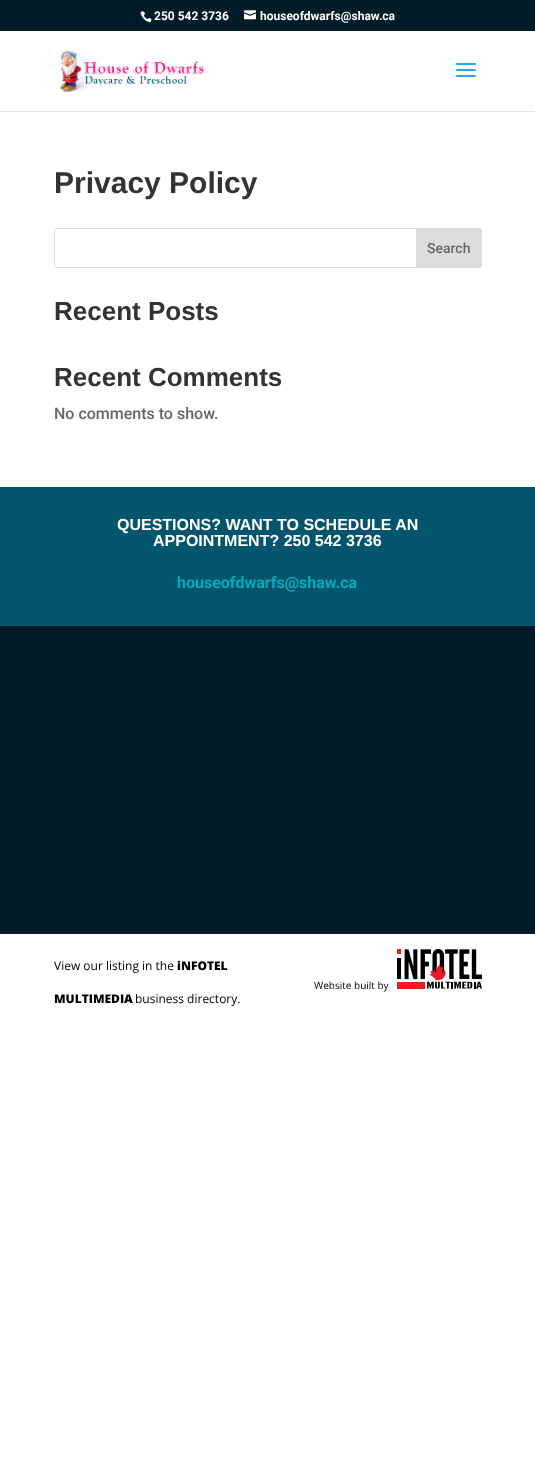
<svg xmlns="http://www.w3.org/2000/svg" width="535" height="1475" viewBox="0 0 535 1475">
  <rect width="100%" height="100%" fill="#ffffff"/>
  <rect x="0" y="0" width="535" height="31" fill="#011c26"/>
  <image x="140" y="11" width="12" height="12" href="img1.png"/>
  <text x="154" y="20" font-family="Roboto" font-size="12" font-weight="bold" fill="#ffffff">250 542 3736</text>
  <image x="244" y="10" width="12" height="10" href="img2.png"/>
  <text x="260" y="20" font-family="Roboto" font-size="12" font-weight="bold" fill="#ffffff">houseofdwarfs@shaw.ca</text>
  <rect x="0" y="111" width="535" height="1" fill="#e6e6e6"/>
  <image x="57" y="50" width="147" height="43" href="img3.png"/>
  <image x="456" y="63" width="20" height="14" href="img4.png"/>
  <text x="54" y="193" font-family="Liberation Sans" font-size="30" font-weight="bold" fill="#333333">Privacy Policy</text>
  <rect x="54.5" y="228.5" width="427" height="39" rx="2.5" fill="none" stroke="#dddddd"/>
  <path d="M416.5 228.5H479C480.5 228.5 481.5 229.5 481.5 231V265C481.5 266.5 480.5 267.5 479 267.5H416.5Z" fill="#dddddd" stroke="#dddddd"/>
  <text x="427" y="253" font-family="Roboto" font-size="14" font-weight="500" fill="#666666">Search</text>
  <text x="54" y="320" font-family="Liberation Sans" font-size="26" font-weight="bold" fill="#333333">Recent Posts</text>
  <text x="54" y="386" font-family="Liberation Sans" font-size="26" font-weight="bold" fill="#333333">Recent Comments</text>
  <text x="54" y="419" font-family="Roboto" font-size="16" font-weight="500" fill="#666666">No comments to show.</text>
  <rect x="0" y="487" width="535" height="139" fill="#03556d"/>
  <text x="117" y="530" font-family="Liberation Sans" font-size="16" font-weight="bold" fill="#ffffff">QUESTIONS? WANT TO SCHEDULE AN</text>
  <text x="153" y="546" font-family="Liberation Sans" font-size="16" font-weight="bold" fill="#ffffff">APPOINTMENT? 250 542 3736</text>
  <text x="177" y="588" font-family="Roboto" font-size="16" font-weight="bold" fill="#00acba">houseofdwarfs@shaw.ca</text>
  <rect x="0" y="626" width="535" height="308" fill="#011c26"/>
  <text x="54" y="970" font-family="Open Sans" font-size="12" fill="#000000">View our listing in the</text>
  <text x="177" y="970" font-family="Open Sans" font-size="12" font-weight="800" fill="#000000">iNFOTEL</text>
  <text x="54" y="1003" font-family="Open Sans" font-size="12" font-weight="800" fill="#000000">MULTIMEDIA</text>
  <text x="135" y="1003" font-family="Open Sans" font-size="12" fill="#000000">business directory.</text>
  <text x="314" y="989" font-family="Open Sans" font-size="10" fill="#000000">Website built by</text>
  <image x="397" y="949" width="85" height="40" href="img5.png"/>
</svg>
